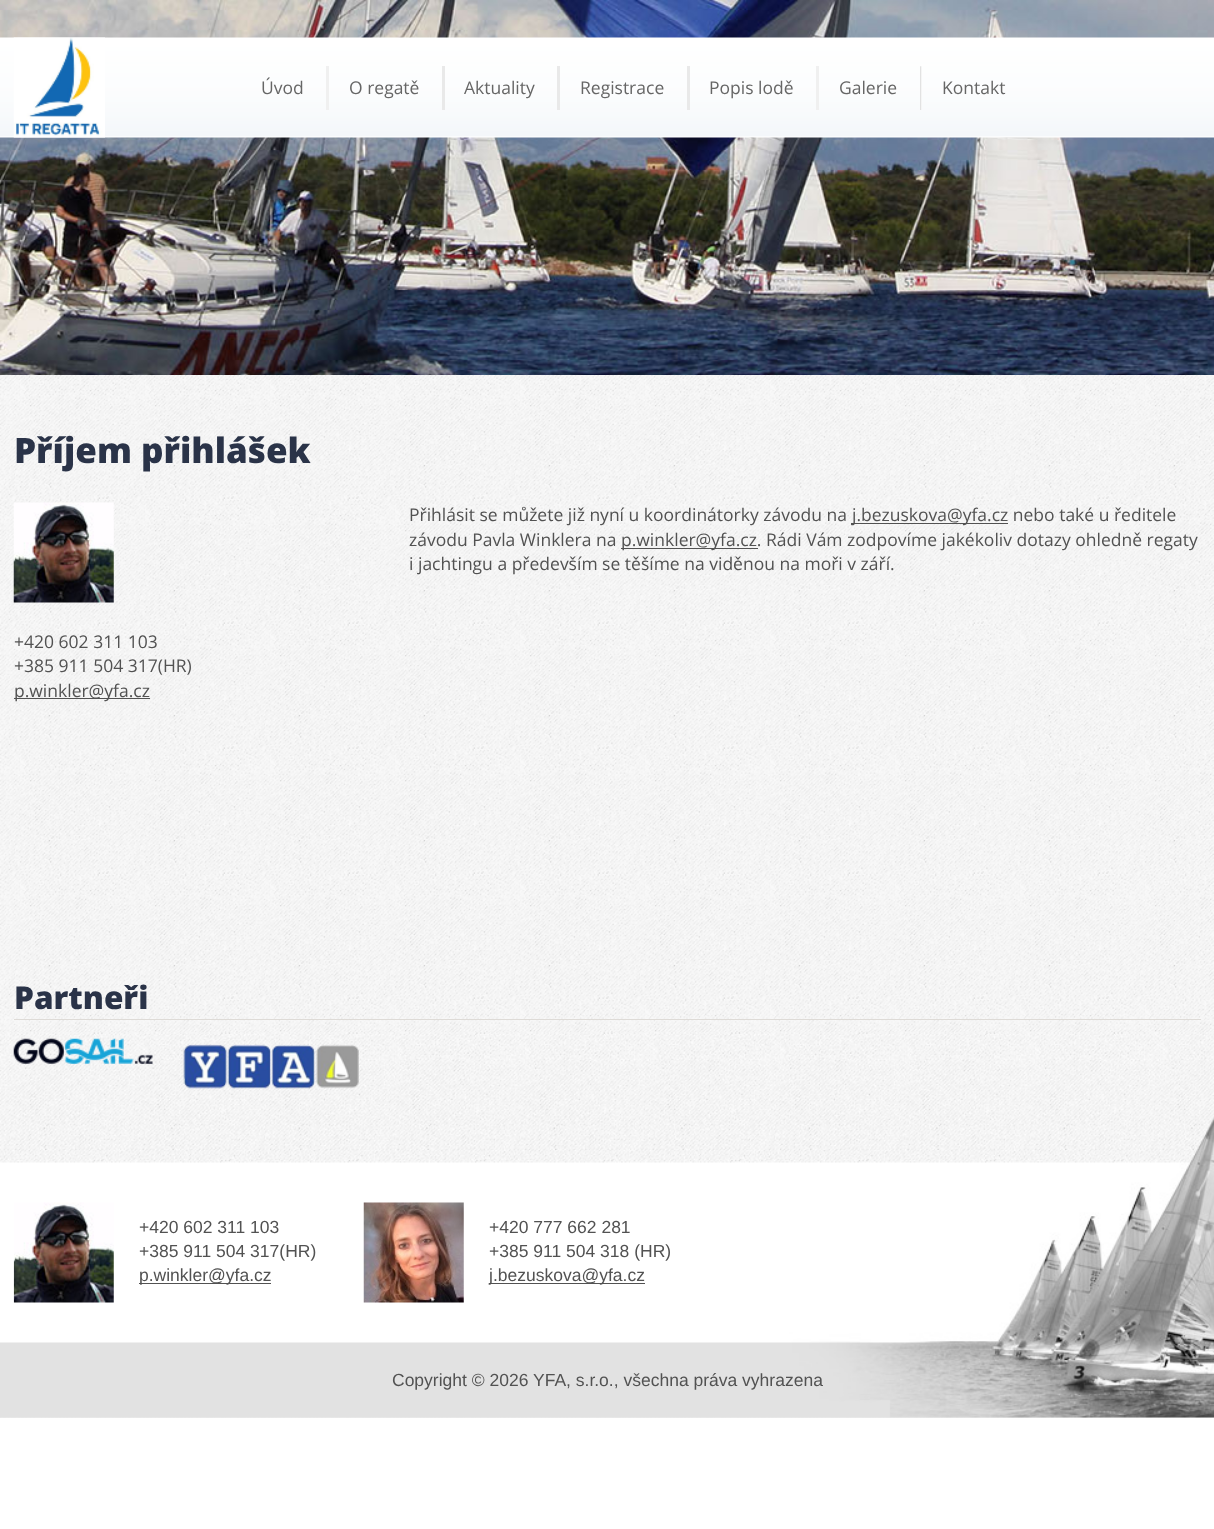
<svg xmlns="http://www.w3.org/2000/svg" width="1214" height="1529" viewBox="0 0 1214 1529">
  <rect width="100%" height="100%" fill="#ffffff"/>
  <image x="0" y="0" width="1214" height="375" href="img1.png"/>
  <image x="0" y="37" width="1214" height="101" href="img2.png"/>
  <image x="13" y="37" width="92" height="101" href="img3.png"/>
  <text x="261" y="94" font-family="Open Sans" font-size="17.5" fill="#666666">Úvod</text>
  <rect x="326" y="66" width="3" height="44" fill="#f0f0f0"/>
  <text x="349" y="94" font-family="Open Sans" font-size="17.5" fill="#666666">O regatě</text>
  <rect x="442" y="66" width="3" height="44" fill="#e9e9e9"/>
  <text x="464" y="94" font-family="Open Sans" font-size="17.5" fill="#666666">Aktuality</text>
  <rect x="557" y="66" width="3" height="44" fill="#e9e9e9"/>
  <text x="580" y="94" font-family="Open Sans" font-size="17.5" fill="#666666">Registrace</text>
  <rect x="687" y="66" width="3" height="44" fill="#e9e9e9"/>
  <text x="709" y="94" font-family="Open Sans" font-size="17.5" fill="#666666">Popis lodě</text>
  <rect x="816" y="66" width="3" height="44" fill="#f0f0f0"/>
  <text x="839" y="94" font-family="Open Sans" font-size="17.5" fill="#666666">Galerie</text>
  <image x="920" y="66" width="2" height="44" href="img4.png"/>
  <text x="942" y="94" font-family="Open Sans" font-size="17.5" fill="#666666">Kontakt</text>
  <image x="0" y="375" width="1214" height="1043" href="img5.png"/>
  <image x="0" y="1032" width="1214" height="386" href="img6.png"/>
  <image x="0" y="1032" width="1214" height="386" href="img7.png"/>
  <text x="14" y="463" font-family="Open Sans" font-size="35" font-weight="800" fill="#2a3348">Příjem přihlášek</text>
  <text x="409" y="521" font-family="Open Sans" font-size="17.5" fill="#525252">Přihlásit se můžete již nyní u koordinátorky závodu na</text>
  <rect x="851" y="523" width="157" height="1" fill="#525252"/>
  <text x="852" y="521" font-family="Open Sans" font-size="17.5" fill="#525252">j.bezuskova@yfa.cz nebo také u ředitele</text>
  <text x="409" y="546" font-family="Open Sans" font-size="17.5" fill="#525252">závodu Pavla Winklera na</text>
  <rect x="621" y="548" width="137" height="1" fill="#525252"/>
  <text x="621" y="546" font-family="Open Sans" font-size="17.5" fill="#525252">p.winkler@yfa.cz. Rádi Vám zodpovíme jakékoliv dotazy ohledně regaty</text>
  <text x="409" y="570" font-family="Open Sans" font-size="17.5" fill="#525252">i jachtingu a především se těšíme na viděnou na moři v září.</text>
  <image x="13" y="502" width="101" height="101" href="img8.png"/>
  <text x="14" y="648" font-family="Open Sans" font-size="17.5" fill="#525252">+420 602 311 103</text>
  <text x="14" y="672" font-family="Open Sans" font-size="17.5" fill="#525252">+385 911 504 317(HR)</text>
  <rect x="14" y="698" width="136" height="1" fill="#525252"/>
  <text x="14" y="697" font-family="Open Sans" font-size="17.5" fill="#525252">p.winkler@yfa.cz</text>
  <rect x="14" y="1019" width="1187" height="1" fill="#dedbd7"/>
  <text x="14" y="1009" font-family="Open Sans" font-size="31.5" font-weight="800" fill="#2a3348">Partneři</text>
  <image x="13" y="1038" width="140" height="26" href="img9.png"/>
  <image x="183" y="1044" width="176" height="45" href="img10.png"/>
  <image x="13" y="1202" width="101" height="101" href="img11.png"/>
  <text x="139" y="1233" font-family="Liberation Sans" font-size="17.5" fill="#525252">+420 602 311 103</text>
  <text x="139" y="1257" font-family="Liberation Sans" font-size="17.5" fill="#525252">+385 911 504 317(HR)</text>
  <rect x="139" y="1283" width="132" height="1" fill="#525252"/>
  <text x="139" y="1281" font-family="Liberation Sans" font-size="17.5" fill="#525252">p.winkler@yfa.cz</text>
  <image x="363" y="1202" width="101" height="101" href="img12.png"/>
  <text x="489" y="1233" font-family="Liberation Sans" font-size="17.5" fill="#525252">+420 777 662 281</text>
  <text x="489" y="1257" font-family="Liberation Sans" font-size="17.5" fill="#525252">+385 911 504 318 (HR)</text>
  <rect x="489" y="1283" width="156" height="1" fill="#525252"/>
  <text x="489" y="1281" font-family="Liberation Sans" font-size="17.5" fill="#525252">j.bezuskova@yfa.cz</text>
  <text x="392" y="1386" font-family="Liberation Sans" font-size="17.5" fill="#525252">Copyright © 2026 YFA, s.r.o., všechna práva vyhrazena</text>
</svg>
